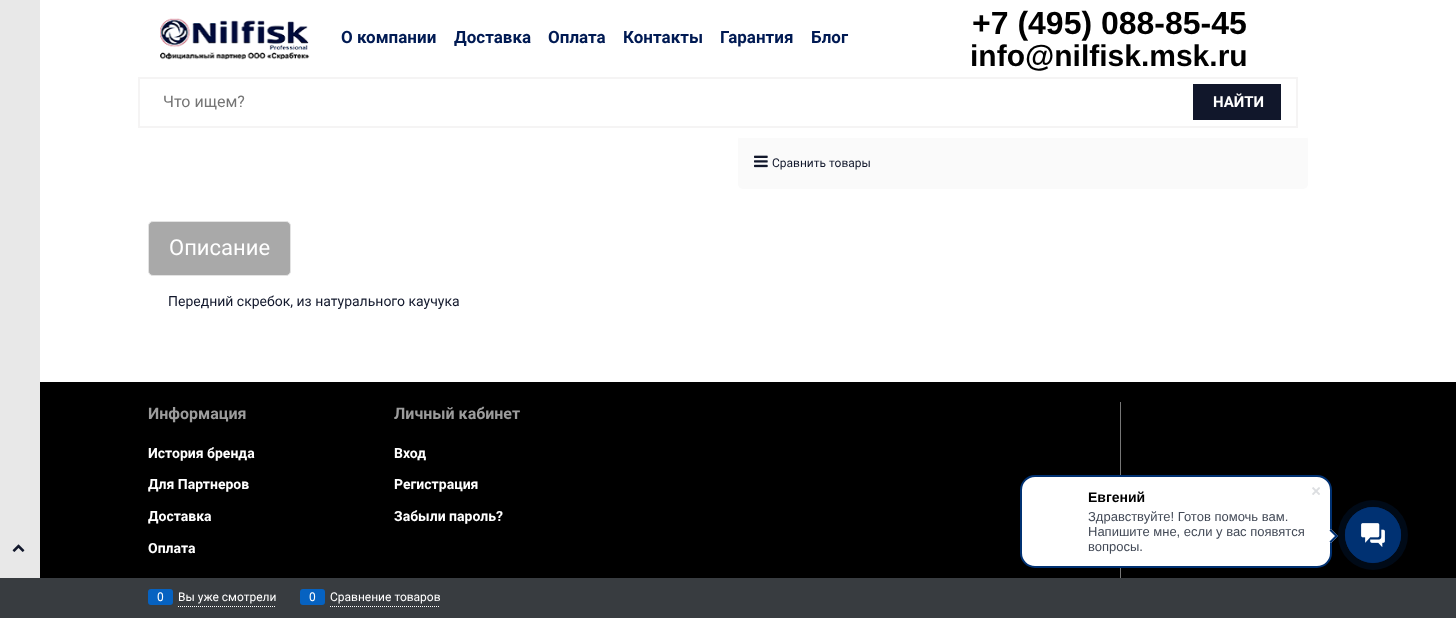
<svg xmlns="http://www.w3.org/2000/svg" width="1456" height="618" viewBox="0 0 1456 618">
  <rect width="100%" height="100%" fill="#ffffff"/>
  <rect x="0" y="0" width="40" height="578" fill="#e8e8e8"/>
  <image x="12" y="544" width="13" height="8" href="img1.png"/>
  <rect x="738" y="135" width="570" height="54" rx="5" fill="#fafafa"/>
  <rect x="739" y="135" width="568" height="3" fill="#ffffff"/>
  <image x="160" y="18" width="150" height="42" href="img2.png"/>
  <text x="341" y="43" font-family="Roboto" font-size="17" font-weight="bold" fill="#001a53">О компании</text>
  <text x="454" y="43" font-family="Roboto" font-size="17" font-weight="bold" fill="#001a53">Доставка</text>
  <text x="548" y="43" font-family="Roboto" font-size="17" font-weight="bold" fill="#001a53">Оплата</text>
  <text x="623" y="43" font-family="Roboto" font-size="17" font-weight="bold" fill="#001a53">Контакты</text>
  <text x="720" y="43" font-family="Roboto" font-size="17" font-weight="bold" fill="#001a53">Гарантия</text>
  <text x="811" y="43" font-family="Roboto" font-size="17" font-weight="bold" fill="#001a53">Блог</text>
  <text x="972" y="34" font-family="Liberation Sans" font-size="32" font-weight="bold" fill="#000000">+7 (495) 088-85-45</text>
  <text x="970" y="66" font-family="Liberation Sans" font-size="30" font-weight="bold" fill="#000000">info@nilfisk.msk.ru</text>
  <rect x="139" y="78" width="1158" height="49" fill="none" stroke="#f5f4f4" stroke-width="2"/>
  <text x="163" y="107" font-family="Roboto" font-size="16" fill="#757575">Что ищем?</text>
  <rect x="1193" y="84" width="88" height="36" fill="#11172b"/>
  <text x="1213" y="107" font-family="Roboto" font-size="15" font-weight="bold" fill="#ffffff">НАЙТИ</text>
  <image x="754" y="155" width="14" height="13" href="img3.png"/>
  <text x="772" y="167" font-family="Roboto" font-size="12" fill="#11172b">Сравнить товары</text>
  <rect x="148.5" y="221.5" width="142" height="54" rx="4.5" fill="#a9a9a9" stroke="#e3e3e3"/>
  <text x="169" y="255" font-family="Roboto" font-size="22" fill="#ffffff">Описание</text>
  <text x="168" y="306" font-family="Roboto" font-size="14" fill="#11172b">Передний скребок, из натурального каучука</text>
  <rect x="40" y="382" width="1416" height="196" fill="#000000"/>
  <rect x="1120" y="402" width="1" height="176" fill="#777777"/>
  <text x="148" y="419" font-family="Roboto" font-size="16" font-weight="bold" fill="#9c9c9c">Информация</text>
  <text x="148" y="458" font-family="Roboto" font-size="14" font-weight="bold" fill="#ffffff">История бренда</text>
  <text x="148" y="489" font-family="Roboto" font-size="14" font-weight="bold" fill="#ffffff">Для Партнеров</text>
  <text x="148" y="521" font-family="Roboto" font-size="14" font-weight="bold" fill="#ffffff">Доставка</text>
  <text x="148" y="553" font-family="Roboto" font-size="14" font-weight="bold" fill="#ffffff">Оплата</text>
  <text x="394" y="419" font-family="Roboto" font-size="16" font-weight="bold" fill="#9c9c9c">Личный кабинет</text>
  <text x="394" y="458" font-family="Roboto" font-size="14" font-weight="bold" fill="#ffffff">Вход</text>
  <text x="394" y="489" font-family="Roboto" font-size="14" font-weight="bold" fill="#ffffff">Регистрация</text>
  <text x="394" y="521" font-family="Roboto" font-size="14" font-weight="bold" fill="#ffffff">Забыли пароль?</text>
  <rect x="0" y="578" width="1456" height="40" fill="#383c40"/>
  <path d="M178 606.5H276" fill="none" stroke="#ffffff" stroke-dasharray="1 1"/>
  <rect x="148" y="589" width="25" height="16" rx="3" fill="#0662c1"/>
  <text x="157" y="601" font-family="Roboto" font-size="12" fill="#ffffff">0</text>
  <text x="178" y="601" font-family="Roboto" font-size="12" fill="#ffffff">Вы уже смотрели</text>
  <path d="M330 606.5H440" fill="none" stroke="#ffffff" stroke-dasharray="1 1"/>
  <rect x="300" y="589" width="25" height="16" rx="3" fill="#0662c1"/>
  <text x="309" y="601" font-family="Roboto" font-size="12" fill="#ffffff">0</text>
  <text x="330" y="601" font-family="Roboto" font-size="12" fill="#ffffff">Сравнение товаров</text>
  <rect x="1021" y="476" width="310" height="91" rx="14" fill="#ffffff" stroke="#003172" stroke-width="2"/>
  <text x="1088" y="502" font-family="Liberation Sans" font-size="14" font-weight="bold" fill="#000000">Евгений</text>
  <text x="1088" y="521" font-family="Liberation Sans" font-size="13" fill="#424956">Здравствуйте! Готов помочь вам.</text>
  <text x="1088" y="536" font-family="Liberation Sans" font-size="13" fill="#424956">Напишите мне, если у вас появятся</text>
  <text x="1088" y="551" font-family="Liberation Sans" font-size="13" fill="#424956">вопросы.</text>
  <image x="1312" y="487" width="8" height="8" href="img4.png"/>
  <path d="M1324 536L1331 529L1338 536L1331 543Z" fill="#ffffff"/>
  <path d="M1329.5 530.5L1331 529L1338 536L1336.5 537.5Z" fill="#003172"/>
  <path d="M1329.5 541.5L1336.5 534.5L1338 536L1331 543Z" fill="#003172"/>
  <circle cx="1373" cy="535" r="35" fill="#000a17"/>
  <circle cx="1373" cy="535" r="27.6" fill="none" stroke="#003172" stroke-width="0.8"/>
  <circle cx="1373" cy="535" r="28" fill="#003172"/>
  <image x="1361" y="523" width="24" height="24" href="img5.png"/>
</svg>
